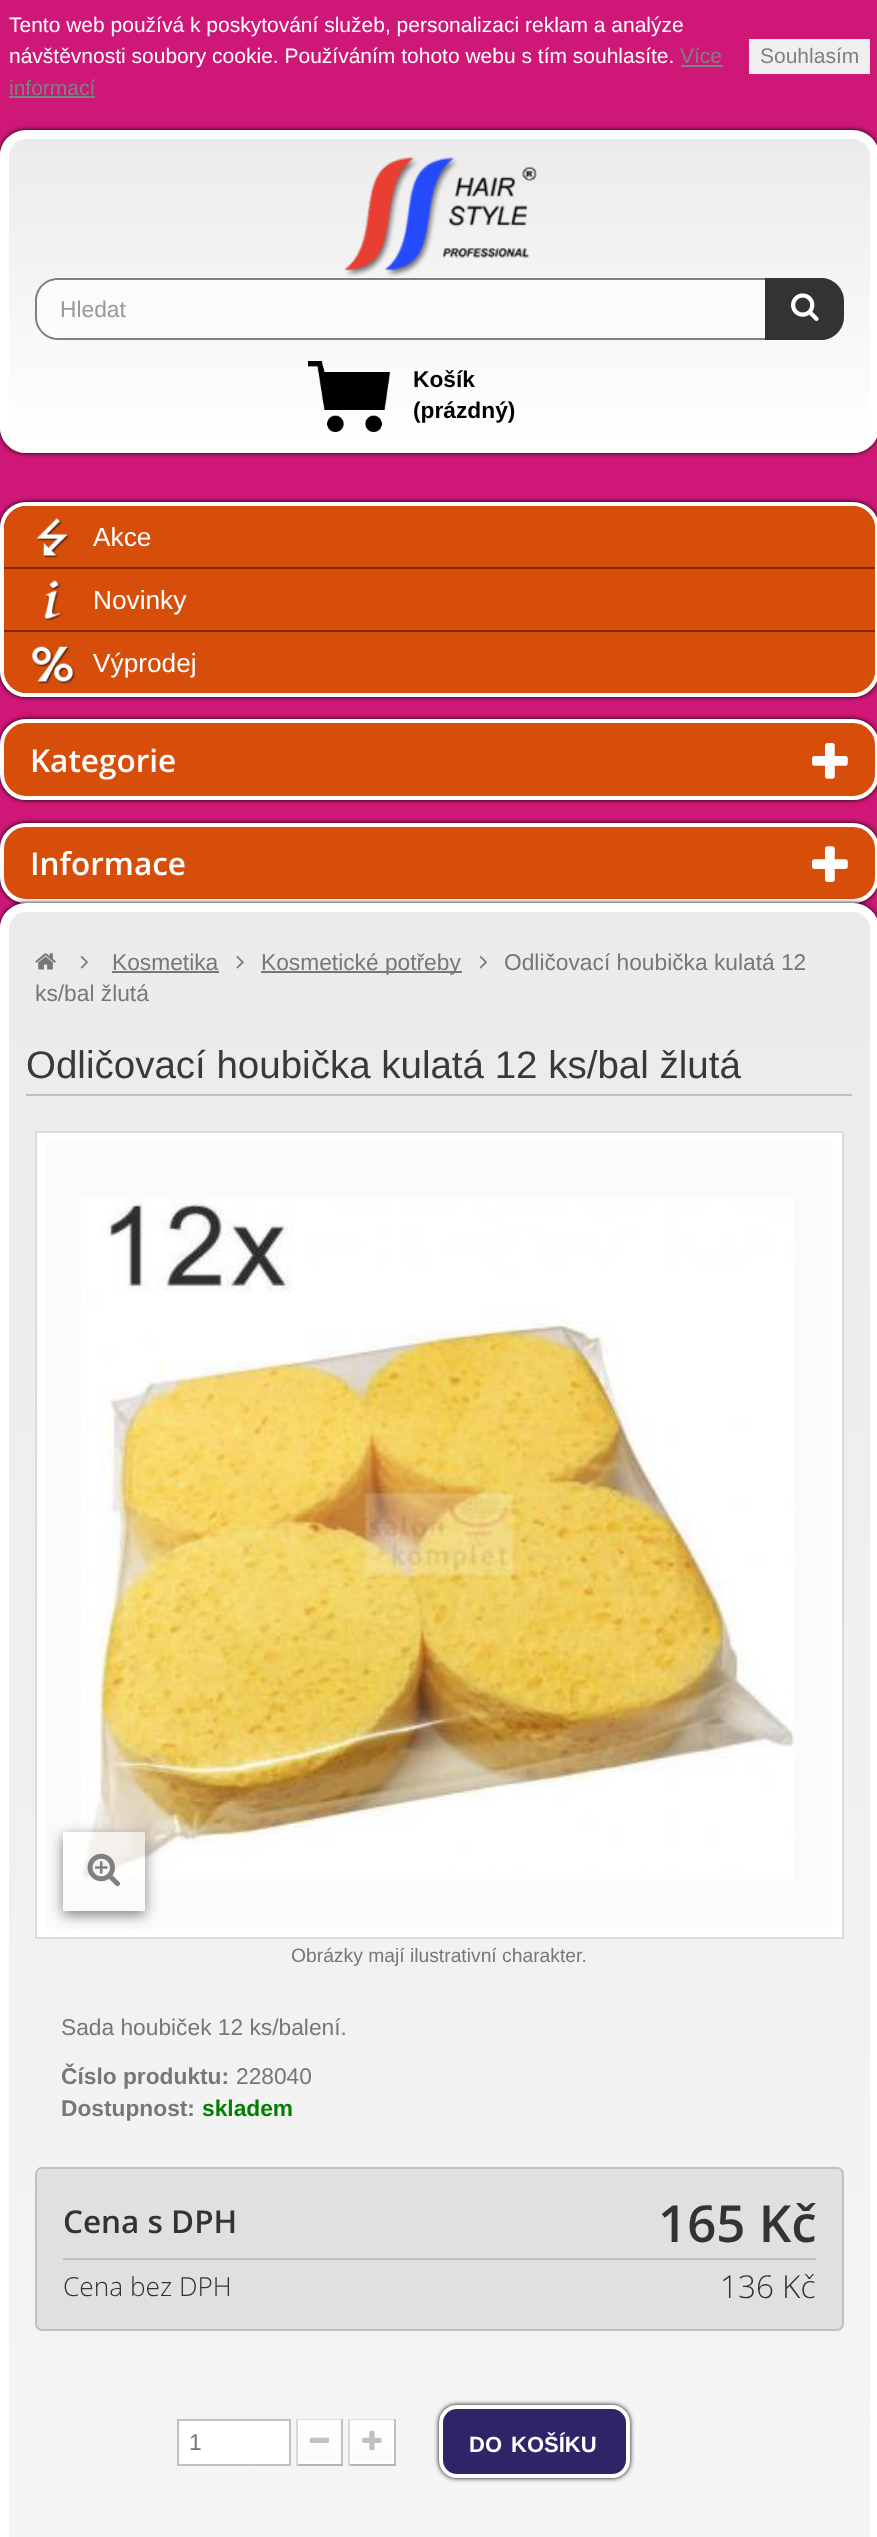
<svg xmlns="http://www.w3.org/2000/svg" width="877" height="2537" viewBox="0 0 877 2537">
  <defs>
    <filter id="blur1" x="-50%" y="-200%" width="200%" height="500%"><feGaussianBlur stdDeviation="2.5"/></filter>
    <clipPath id="clip1"><rect x="0" y="130" width="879" height="323" rx="26"/></clipPath>
    <linearGradient id="g1" gradientUnits="userSpaceOnUse" x1="439" y1="138" x2="439" y2="445"><stop offset="0" stop-color="#ebebeb"/><stop offset="1" stop-color="#ffffff"/></linearGradient>
    <clipPath id="clip2"><rect x="0" y="903" width="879" height="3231" rx="26"/></clipPath>
    <linearGradient id="g2" gradientUnits="userSpaceOnUse" x1="439" y1="912" x2="439" y2="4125"><stop offset="0" stop-color="#ebebeb"/><stop offset="1" stop-color="#ffffff"/></linearGradient>
    <clipPath id="clip3"><path d="M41 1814H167V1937H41ZM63 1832H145V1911H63Z" clip-rule="evenodd"/></clipPath>
    <filter id="blur2" x="-50%" y="-200%" width="200%" height="500%"><feGaussianBlur stdDeviation="7"/></filter>
    <linearGradient id="g3" gradientUnits="userSpaceOnUse" x1="319" y1="2422" x2="319" y2="2462"><stop offset="0" stop-color="#ffffff"/><stop offset="1" stop-color="#fbfbfb"/></linearGradient>
    <linearGradient id="g4" gradientUnits="userSpaceOnUse" x1="372" y1="2422" x2="372" y2="2462"><stop offset="0" stop-color="#ffffff"/><stop offset="1" stop-color="#fbfbfb"/></linearGradient>
  </defs>
  <rect width="100%" height="100%" fill="#cf1777"/>
  <text x="9" y="32" font-family="Liberation Sans" font-size="21" fill="#ffffff">Tento web používá k poskytování služeb, personalizaci reklam a analýze</text>
  <text x="9" y="63" font-family="Liberation Sans" font-size="21" fill="#ffffff">návštěvnosti soubory cookie. Používáním tohoto webu s tím souhlasíte.</text>
  <text x="680" y="63" font-family="Liberation Sans" font-size="21" fill="#808080">Více</text>
  <rect x="681" y="65" width="42" height="2" fill="#808080"/>
  <text x="9" y="95" font-family="Liberation Sans" font-size="21" fill="#808080">informací</text>
  <rect x="9" y="96" width="86" height="2" fill="#808080"/>
  <rect x="749" y="39" width="121" height="35" fill="#efefef"/>
  <text x="760" y="63" font-family="Liberation Sans" font-size="21" fill="#808080">Souhlasím</text>
  <rect x="0" y="130" width="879" height="323" rx="26" fill="#000000" filter="url(#blur1)"/>
  <g clip-path="url(#clip1)">
    <rect x="0" y="138" width="877" height="307" fill="url(#g1)"/>
  </g>
  <rect x="4.5" y="134.5" width="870" height="314" rx="21.5" fill="none" stroke="#ffffff" stroke-width="9"/>
  <image x="344" y="157" width="193" height="120" href="img1.png"/>
  <rect x="35" y="278" width="809" height="62" rx="23" fill="#fbfbfb"/>
  <path d="M58 278H821C833 278 844 288 844 301V317C844 329 833 340 821 340H58C45 340 35 329 35 317V301C35 288 45 278 58 278ZM58 280H821C833 280 844 289 844 301V317C844 328 833 338 821 338H58C46 338 37 328 37 317V301C37 289 46 280 58 280Z" fill="#808080" fill-rule="evenodd"/>
  <text x="60" y="317" font-family="Liberation Sans" font-size="22.75" fill="#999999">Hledat</text>
  <path d="M765 278H821C833.5 278 844 288.5 844 301V317C844 329.5 833.5 340 821 340H765Z" fill="#333333"/>
  <image x="791" y="293" width="28" height="28" href="img2.png"/>
  <image x="308" y="361" width="82" height="71" href="img3.png"/>
  <text x="413" y="387" font-family="Liberation Sans" font-size="22.75" font-weight="bold" fill="#000000">Košík</text>
  <text x="413" y="418" font-family="Liberation Sans" font-size="22.75" font-weight="bold" fill="#000000">(prázdný)</text>
  <rect x="0" y="502" width="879" height="195" rx="26" fill="#000000" filter="url(#blur1)"/>
  <rect x="2" y="504" width="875" height="191" rx="24" fill="#d64e0a" stroke="#ffffff" stroke-width="4"/>
  <rect x="4" y="506" width="871" height="187" rx="23" fill="#d64e0a"/>
  <path d="M27 506H852C864.5 506 875 516.5 875 529V567H4V529C4 516.5 14.5 506 27 506Z" fill="#d64e0a"/>
  <image x="36" y="517" width="34" height="41" href="img4.png"/>
  <text x="93" y="546" font-family="Liberation Sans" font-size="26.25" fill="#ffffff">Akce</text>
  <rect x="4" y="567" width="871" height="2" fill="#772a04"/>
  <image x="44" y="580" width="18" height="41" href="img5.png"/>
  <text x="93" y="609" font-family="Liberation Sans" font-size="26.25" fill="#ffffff">Novinky</text>
  <path d="M4 630H875V670C875 682.5 864.5 693 852 693H27C14.5 693 4 682.5 4 670Z" fill="#d64e0a"/>
  <rect x="4" y="630" width="871" height="2" fill="#772a04"/>
  <image x="32" y="646" width="44" height="38" href="img6.png"/>
  <text x="93" y="672" font-family="Liberation Sans" font-size="26.25" fill="#ffffff">Výprodej</text>
  <rect x="0" y="719" width="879" height="81" rx="26" fill="#000000" filter="url(#blur1)"/>
  <rect x="2" y="721" width="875" height="77" rx="24" fill="#d64e0a" stroke="#ffffff" stroke-width="4"/>
  <text x="30" y="772" font-family="Open Sans" font-size="31.5" font-weight="600" fill="#ffffff">Kategorie</text>
  <image x="812" y="743" width="36" height="36" href="img7.png"/>
  <rect x="0" y="823" width="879" height="80" rx="26" fill="#000000" filter="url(#blur1)"/>
  <rect x="2" y="825" width="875" height="76" rx="24" fill="#d64e0a" stroke="#ffffff" stroke-width="4"/>
  <text x="30" y="875" font-family="Open Sans" font-size="31.5" font-weight="600" fill="#ffffff">Informace</text>
  <image x="812" y="846" width="36" height="36" href="img8.png"/>
  <rect x="0" y="903" width="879" height="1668" rx="26" fill="#000000" filter="url(#blur1)"/>
  <g clip-path="url(#clip2)">
    <rect x="0" y="912" width="877" height="1625" fill="url(#g2)"/>
  </g>
  <rect x="4.5" y="907.5" width="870" height="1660" rx="21.5" fill="none" stroke="#ffffff" stroke-width="9"/>
  <image x="35" y="953" width="21" height="17" href="img9.png"/>
  <image x="80" y="955" width="8" height="14" href="img10.png"/>
  <text x="112" y="970" font-family="Liberation Sans" font-size="22.75" fill="#777777">Kosmetika</text>
  <rect x="112" y="971" width="107" height="2" fill="#777777"/>
  <image x="236" y="955" width="8" height="14" href="img11.png"/>
  <rect x="261" y="971" width="201" height="2" fill="#777777"/>
  <text x="261" y="970" font-family="Liberation Sans" font-size="22.75" fill="#777777">Kosmetické potřeby</text>
  <image x="479" y="955" width="8" height="14" href="img10.png"/>
  <text x="504" y="970" font-family="Liberation Sans" font-size="22.75" fill="#777777">Odličovací houbička kulatá 12</text>
  <text x="35" y="1001" font-family="Liberation Sans" font-size="22.75" fill="#777777">ks/bal žlutá</text>
  <rect x="26" y="1094" width="826" height="2" fill="#c0c0c0"/>
  <text x="26" y="1078" font-family="Liberation Sans" font-size="38.5" fill="#3a3939">Odličovací houbička kulatá 12 ks/bal žlutá</text>
  <rect x="36" y="1132" width="807" height="806" fill="#ffffff" stroke="#dbdbdb" stroke-width="2"/>
  <rect x="46" y="1141" width="787" height="788" fill="#fbfbfb"/>
  <image x="81" y="1198" width="713" height="681" href="img12.png"/>
  <g clip-path="url(#clip3)">
    <rect x="63" y="1836" width="82" height="79" fill="#808080" filter="url(#blur2)"/>
  </g>
  <rect x="63" y="1832" width="82" height="47" fill="#ffffff" fill-opacity="0.5"/>
  <image x="87" y="1853" width="33" height="34" href="img13.png"/>
  <text x="291" y="1962" font-family="Liberation Sans" font-size="19.3" fill="#777777">Obrázky mají ilustrativní charakter.</text>
  <text x="61" y="2035" font-family="Liberation Sans" font-size="22.75" fill="#777777">Sada houbiček 12 ks/balení.</text>
  <text x="61" y="2084" font-family="Liberation Sans" font-size="22.75" font-weight="bold" fill="#777777">Číslo produktu:</text>
  <text x="236" y="2084" font-family="Liberation Sans" font-size="22.75" fill="#777777">228040</text>
  <text x="61" y="2116" font-family="Liberation Sans" font-size="22.75" font-weight="bold" fill="#777777">Dostupnost:</text>
  <text x="202" y="2116" font-family="Liberation Sans" font-size="22.75" font-weight="bold" fill="#008000">skladem</text>
  <rect x="36" y="2168" width="807" height="162" rx="6" fill="#e0e0e0" stroke="#c0c0c0" stroke-width="2"/>
  <rect x="63" y="2258" width="753" height="2" fill="#c0c0c0"/>
  <text x="63" y="2233" font-family="Open Sans" font-size="31.5" font-weight="600" fill="#333333">Cena s DPH</text>
  <text x="658" y="2242" font-family="Open Sans" font-size="51" font-weight="600" fill="#333333">165 Kč</text>
  <text x="63" y="2296" font-family="Open Sans" font-size="26.25" font-weight="300" fill="#333333">Cena bez DPH</text>
  <text x="720" y="2298" font-family="Open Sans" font-size="31.5" font-weight="300" fill="#333333">136 Kč</text>
  <rect x="178" y="2420" width="112" height="45" fill="#ffffff" stroke="#bdc2c9" stroke-width="2"/>
  <text x="189" y="2450" font-family="Liberation Sans" font-size="22.75" fill="#777777">1</text>
  <rect x="296" y="2419" width="47" height="1" fill="#dedcdc"/>
  <rect x="341" y="2419" width="2" height="47" fill="#c1bfbf"/>
  <rect x="296" y="2464" width="47" height="2" fill="#b5b4b4"/>
  <rect x="296" y="2419" width="2" height="47" fill="#dad8d8"/>
  <rect x="300" y="2422" width="39" height="40" fill="url(#g3)"/>
  <rect x="299" y="2421" width="41" height="42" fill="none" stroke="#ffffff" stroke-width="2"/>
  <image x="309" y="2437" width="20" height="6" href="img14.png"/>
  <rect x="348" y="2419" width="48" height="1" fill="#dedcdc"/>
  <rect x="394" y="2419" width="2" height="47" fill="#c1bfbf"/>
  <rect x="348" y="2464" width="48" height="2" fill="#b5b4b4"/>
  <rect x="348" y="2419" width="2" height="47" fill="#dad8d8"/>
  <rect x="352" y="2422" width="40" height="40" fill="url(#g4)"/>
  <rect x="351" y="2421" width="42" height="42" fill="none" stroke="#ffffff" stroke-width="2"/>
  <image x="362" y="2430" width="20" height="20" href="img15.png"/>
  <rect x="439" y="2405" width="191" height="73" rx="18" fill="#000000" filter="url(#blur1)"/>
  <rect x="441" y="2407" width="187" height="69" rx="16" fill="#2e2468" stroke="#ffffff" stroke-width="4"/>
  <text x="469" y="2452" font-family="Liberation Sans" font-size="22" font-weight="bold" fill="#ffffff">DO</text>
  <text x="511" y="2452" font-family="Liberation Sans" font-size="22" font-weight="bold" fill="#ffffff">KOŠÍKU</text>
</svg>
